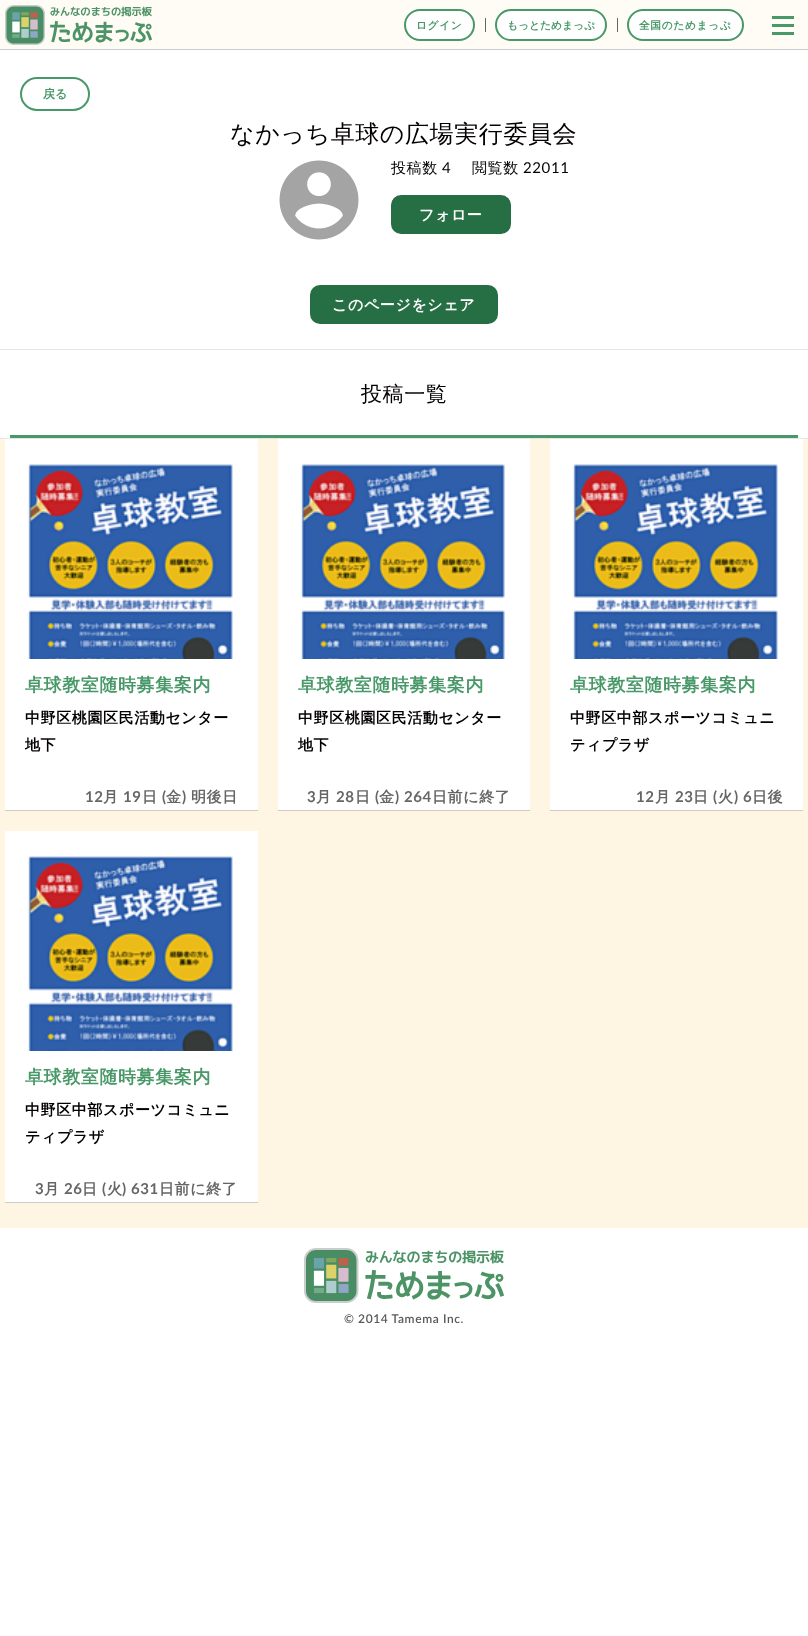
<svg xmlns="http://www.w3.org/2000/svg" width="808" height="1636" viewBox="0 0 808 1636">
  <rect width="100%" height="100%" fill="#ffffff"/>
  <rect x="0" y="0" width="808" height="49" fill="#fffbf5"/>
  <rect x="0" y="49" width="808" height="1" fill="#cccccc"/>
  <image x="5" y="5" width="147" height="40" href="img1.png"/>
  <rect x="405" y="10" width="69" height="30" rx="15" fill="#ffffff" stroke="#489868" stroke-width="2"/>
  <text x="416" y="29" font-family="WenQuanYi Zen Hei" font-size="10.75" font-weight="bold" letter-spacing="0.6" fill="#489868">ログイン</text>
  <rect x="485" y="18" width="1" height="14" fill="#666666"/>
  <rect x="496" y="10" width="110" height="30" rx="15" fill="#ffffff" stroke="#489868" stroke-width="2"/>
  <text x="507" y="29" font-family="WenQuanYi Zen Hei" font-size="10.75" font-weight="bold" fill="#489868">もっとためまっぷ</text>
  <rect x="617" y="18" width="1" height="14" fill="#666666"/>
  <rect x="628" y="10" width="115" height="30" rx="15" fill="#ffffff" stroke="#489868" stroke-width="2"/>
  <text x="639" y="29" font-family="WenQuanYi Zen Hei" font-size="10.75" font-weight="bold" letter-spacing="0.6" fill="#489868">全国のためまっぷ</text>
  <rect x="772" y="16" width="22" height="3" fill="#489868"/>
  <rect x="772" y="24" width="22" height="3" fill="#489868"/>
  <rect x="772" y="32" width="22" height="3" fill="#489868"/>
  <rect x="21" y="78" width="68" height="32" rx="16" fill="none" stroke="#489868" stroke-width="2"/>
  <text x="43" y="98" font-family="WenQuanYi Zen Hei" font-size="12" font-weight="bold" fill="#489868">戻る</text>
  <text x="230" y="142" font-family="WenQuanYi Zen Hei" font-size="24" font-weight="500" letter-spacing="0.6" fill="#040000">なかっち卓球の広場実行委員会</text>
  <image x="279" y="160" width="80" height="80" href="img2.png"/>
  <text x="391" y="173" font-family="WenQuanYi Zen Hei" font-size="15" font-weight="500" letter-spacing="0.6" fill="#040000">投稿数</text>
  <text x="442" y="173" font-family="Lato" font-size="15" letter-spacing="0.6" fill="#040000">4</text>
  <text x="472" y="173" font-family="WenQuanYi Zen Hei" font-size="15" font-weight="500" letter-spacing="0.6" fill="#040000">閲覧数</text>
  <text x="523" y="173" font-family="Lato" font-size="15" letter-spacing="0.6" fill="#040000">22011</text>
  <rect x="392" y="196" width="118" height="37" rx="9" fill="#266e43" stroke="#266e43" stroke-width="2"/>
  <text x="419" y="220" font-family="WenQuanYi Zen Hei" font-size="15" font-weight="bold" letter-spacing="0.6" fill="#fefefe">フォロー</text>
  <rect x="311" y="286" width="186" height="37" rx="9" fill="#266e43" stroke="#266e43" stroke-width="2"/>
  <text x="332" y="310" font-family="WenQuanYi Zen Hei" font-size="15" font-weight="bold" letter-spacing="0.6" fill="#fefefe">このページをシェア</text>
  <rect x="0" y="349" width="808" height="1" fill="#e6e6e6"/>
  <rect x="10" y="435" width="788" height="3" fill="#489868"/>
  <text x="361" y="401" font-family="WenQuanYi Zen Hei" font-size="21" font-weight="500" letter-spacing="0.6" fill="#040000">投稿一覧</text>
  <rect x="0" y="438" width="808" height="1" fill="#e6e6e6"/>
  <rect x="0" y="439" width="808" height="789" fill="#fef5e3"/>
  <rect x="5" y="439" width="253" height="371" fill="#ffffff"/>
  <rect x="5" y="810" width="253" height="1" fill="#cccccc"/>
  <image x="27" y="464" width="206" height="195" href="img3.png"/>
  <text x="25" y="691" font-family="WenQuanYi Zen Hei" font-size="18" font-weight="bold" letter-spacing="0.6" fill="#489868">卓球教室随時募集案内</text>
  <text x="25" y="723" font-family="WenQuanYi Zen Hei" font-size="15" font-weight="bold" letter-spacing="0.6" fill="#040000">中野区桃園区民活動センター</text>
  <text x="25" y="750" font-family="WenQuanYi Zen Hei" font-size="15" font-weight="bold" letter-spacing="0.6" fill="#040000">地下</text>
  <text x="85" y="802" font-family="Lato" font-size="15" font-weight="bold" letter-spacing="0.6" fill="#666666">12</text>
  <text x="103" y="802" font-family="WenQuanYi Zen Hei" font-size="15" font-weight="bold" letter-spacing="0.6" fill="#666666">月</text>
  <text x="123" y="802" font-family="Lato" font-size="15" font-weight="bold" letter-spacing="0.6" fill="#666666">19</text>
  <text x="142" y="802" font-family="WenQuanYi Zen Hei" font-size="15" font-weight="bold" letter-spacing="0.6" fill="#666666">日</text>
  <text x="162" y="802" font-family="Lato" font-size="15" font-weight="bold" letter-spacing="0.6" fill="#666666">(</text>
  <text x="166" y="802" font-family="WenQuanYi Zen Hei" font-size="15" font-weight="bold" letter-spacing="0.6" fill="#666666">金</text>
  <text x="182" y="802" font-family="Lato" font-size="15" font-weight="bold" letter-spacing="0.6" fill="#666666">)</text>
  <text x="191" y="802" font-family="WenQuanYi Zen Hei" font-size="15" font-weight="bold" letter-spacing="0.6" fill="#666666">明後日</text>
  <rect x="278" y="439" width="252" height="371" fill="#ffffff"/>
  <rect x="278" y="810" width="252" height="1" fill="#cccccc"/>
  <image x="300" y="464" width="205" height="195" href="img4.png"/>
  <text x="298" y="691" font-family="WenQuanYi Zen Hei" font-size="18" font-weight="bold" letter-spacing="0.6" fill="#489868">卓球教室随時募集案内</text>
  <text x="298" y="723" font-family="WenQuanYi Zen Hei" font-size="15" font-weight="bold" letter-spacing="0.6" fill="#040000">中野区桃園区民活動センター</text>
  <text x="298" y="750" font-family="WenQuanYi Zen Hei" font-size="15" font-weight="bold" letter-spacing="0.6" fill="#040000">地下</text>
  <text x="307" y="802" font-family="Lato" font-size="15" font-weight="bold" letter-spacing="0.6" fill="#666666">3</text>
  <text x="316" y="802" font-family="WenQuanYi Zen Hei" font-size="15" font-weight="bold" letter-spacing="0.6" fill="#666666">月</text>
  <text x="336" y="802" font-family="Lato" font-size="15" font-weight="bold" letter-spacing="0.6" fill="#666666">28</text>
  <text x="355" y="802" font-family="WenQuanYi Zen Hei" font-size="15" font-weight="bold" letter-spacing="0.6" fill="#666666">日</text>
  <text x="375" y="802" font-family="Lato" font-size="15" font-weight="bold" letter-spacing="0.6" fill="#666666">(</text>
  <text x="379" y="802" font-family="WenQuanYi Zen Hei" font-size="15" font-weight="bold" letter-spacing="0.6" fill="#666666">金</text>
  <text x="395" y="802" font-family="Lato" font-size="15" font-weight="bold" letter-spacing="0.6" fill="#666666">) 264</text>
  <text x="432" y="802" font-family="WenQuanYi Zen Hei" font-size="15" font-weight="bold" letter-spacing="0.6" fill="#666666">日前に終了</text>
  <rect x="550" y="439" width="253" height="371" fill="#ffffff"/>
  <rect x="550" y="810" width="253" height="1" fill="#cccccc"/>
  <image x="572" y="464" width="206" height="195" href="img5.png"/>
  <text x="570" y="691" font-family="WenQuanYi Zen Hei" font-size="18" font-weight="bold" letter-spacing="0.6" fill="#489868">卓球教室随時募集案内</text>
  <text x="570" y="723" font-family="WenQuanYi Zen Hei" font-size="15" font-weight="bold" letter-spacing="0.6" fill="#040000">中野区中部スポーツコミュニ</text>
  <text x="570" y="750" font-family="WenQuanYi Zen Hei" font-size="15" font-weight="bold" letter-spacing="0.6" fill="#040000">ティプラザ</text>
  <text x="636" y="802" font-family="Lato" font-size="15" font-weight="bold" letter-spacing="0.6" fill="#666666">12</text>
  <text x="655" y="802" font-family="WenQuanYi Zen Hei" font-size="15" font-weight="bold" letter-spacing="0.6" fill="#666666">月</text>
  <text x="675" y="802" font-family="Lato" font-size="15" font-weight="bold" letter-spacing="0.6" fill="#666666">23</text>
  <text x="693" y="802" font-family="WenQuanYi Zen Hei" font-size="15" font-weight="bold" letter-spacing="0.6" fill="#666666">日</text>
  <text x="713" y="802" font-family="Lato" font-size="15" font-weight="bold" letter-spacing="0.6" fill="#666666">(</text>
  <text x="718" y="802" font-family="WenQuanYi Zen Hei" font-size="15" font-weight="bold" letter-spacing="0.6" fill="#666666">火</text>
  <text x="734" y="802" font-family="Lato" font-size="15" font-weight="bold" letter-spacing="0.6" fill="#666666">) 6</text>
  <text x="752" y="802" font-family="WenQuanYi Zen Hei" font-size="15" font-weight="bold" letter-spacing="0.6" fill="#666666">日後</text>
  <rect x="5" y="831" width="253" height="371" fill="#ffffff"/>
  <rect x="5" y="1202" width="253" height="1" fill="#cccccc"/>
  <image x="27" y="856" width="206" height="195" href="img6.png"/>
  <text x="25" y="1083" font-family="WenQuanYi Zen Hei" font-size="18" font-weight="bold" letter-spacing="0.6" fill="#489868">卓球教室随時募集案内</text>
  <text x="25" y="1115" font-family="WenQuanYi Zen Hei" font-size="15" font-weight="bold" letter-spacing="0.6" fill="#040000">中野区中部スポーツコミュニ</text>
  <text x="25" y="1142" font-family="WenQuanYi Zen Hei" font-size="15" font-weight="bold" letter-spacing="0.6" fill="#040000">ティプラザ</text>
  <text x="35" y="1194" font-family="Lato" font-size="15" font-weight="bold" letter-spacing="0.6" fill="#666666">3</text>
  <text x="44" y="1194" font-family="WenQuanYi Zen Hei" font-size="15" font-weight="bold" letter-spacing="0.6" fill="#666666">月</text>
  <text x="64" y="1194" font-family="Lato" font-size="15" font-weight="bold" letter-spacing="0.6" fill="#666666">26</text>
  <text x="82" y="1194" font-family="WenQuanYi Zen Hei" font-size="15" font-weight="bold" letter-spacing="0.6" fill="#666666">日</text>
  <text x="102" y="1194" font-family="Lato" font-size="15" font-weight="bold" letter-spacing="0.6" fill="#666666">(</text>
  <text x="107" y="1194" font-family="WenQuanYi Zen Hei" font-size="15" font-weight="bold" letter-spacing="0.6" fill="#666666">火</text>
  <text x="122" y="1194" font-family="Lato" font-size="15" font-weight="bold" letter-spacing="0.6" fill="#666666">) 631</text>
  <text x="159" y="1194" font-family="WenQuanYi Zen Hei" font-size="15" font-weight="bold" letter-spacing="0.6" fill="#666666">日前に終了</text>
  <image x="304" y="1248" width="200" height="55" href="img7.png"/>
  <text x="344" y="1323" font-family="Lato" font-size="12" font-weight="600" letter-spacing="0.6" fill="#585858">©︎ 2014 Tamema Inc.</text>
</svg>
